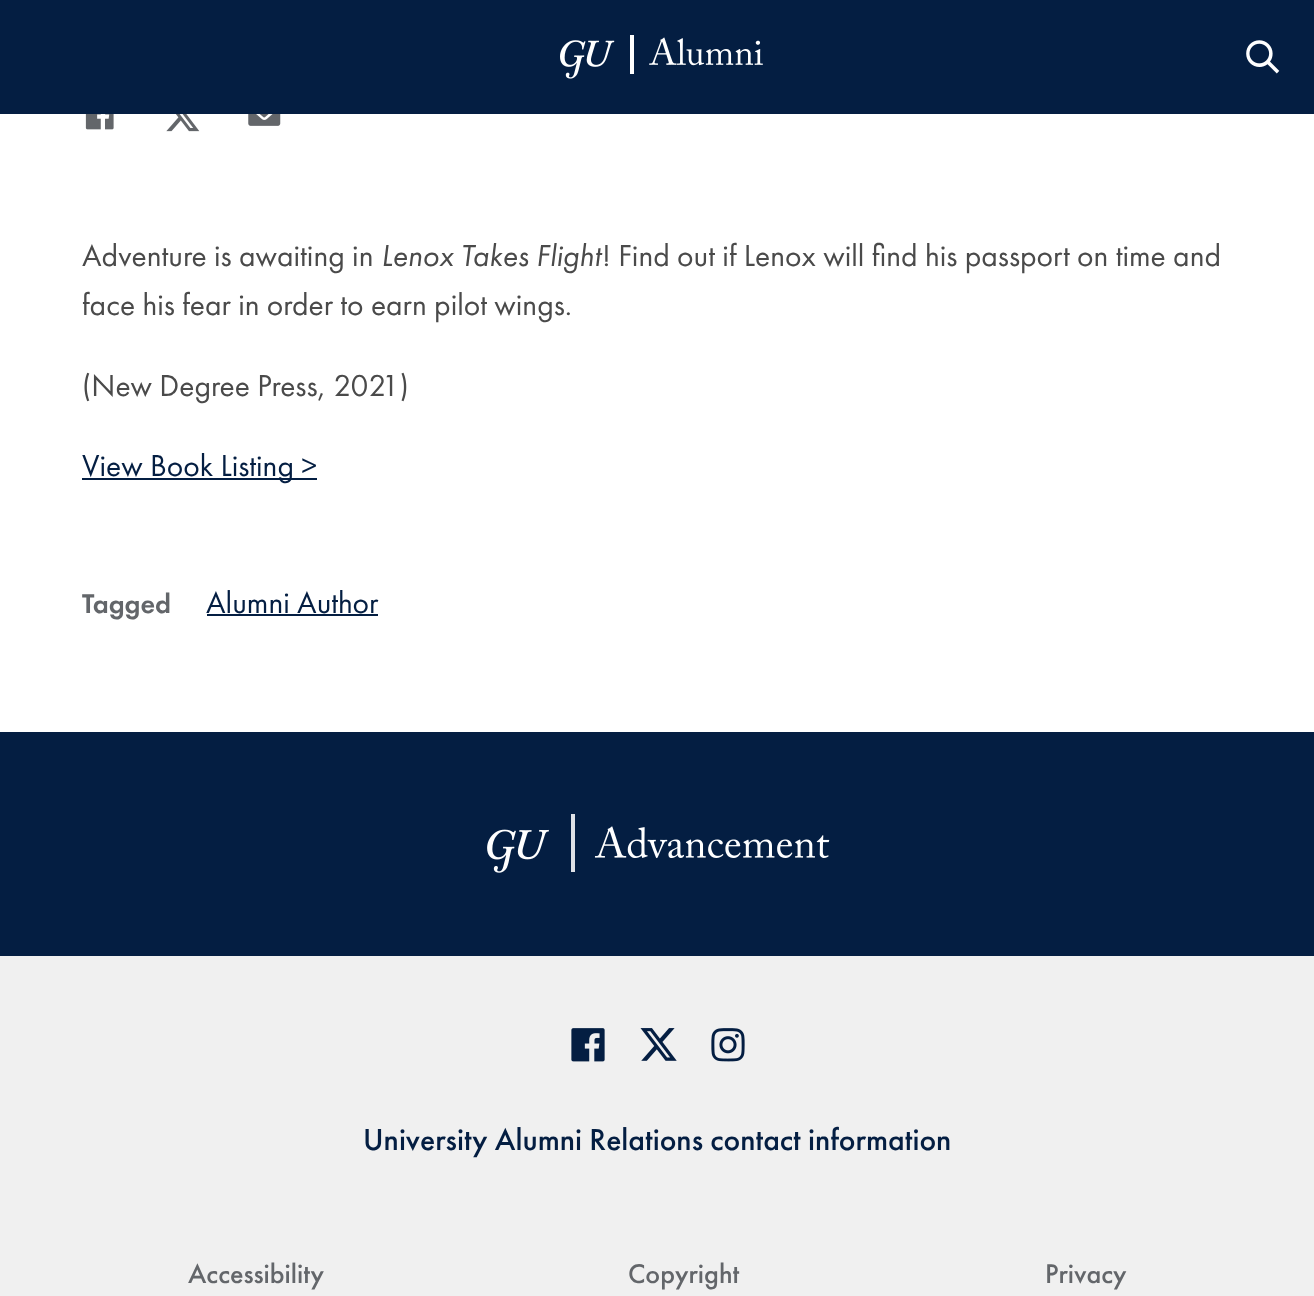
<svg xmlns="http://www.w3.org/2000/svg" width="1314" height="1296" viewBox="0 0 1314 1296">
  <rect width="100%" height="100%" fill="#ffffff"/>
  <rect x="0" y="0" width="1314" height="114" fill="#041e42"/>
  <image x="560" y="35" width="203" height="44" href="img1.png"/>
  <image x="1246" y="40" width="34" height="34" href="img2.png"/>
  <image x="85" y="114" width="29" height="16" href="img3.png"/>
  <image x="166" y="114" width="34" height="18" href="img4.png"/>
  <image x="248" y="114" width="33" height="12" href="img5.png"/>
  <text x="82" y="266" font-family="Futura PT" font-size="31.5" fill="#4a4a4a">Adventure is awaiting in</text>
  <text x="381" y="266" font-family="Futura PT" font-size="31.5" font-style="italic" fill="#4a4a4a">Lenox Takes Flight</text>
  <text x="602" y="266" font-family="Futura PT" font-size="31.5" fill="#4a4a4a">! Find out if Lenox will find his passport on time and</text>
  <text x="82" y="315" font-family="Futura PT" font-size="31.5" fill="#4a4a4a">face his fear in order to earn pilot wings.</text>
  <text x="82" y="396" font-family="Futura PT" font-size="31.5" fill="#4a4a4a">(New Degree Press, 2021)</text>
  <rect x="82" y="478" width="235" height="2" fill="#041e42"/>
  <text x="82" y="476" font-family="Futura PT" font-size="31.5" fill="#041e42">View Book Listing &gt;</text>
  <text x="82" y="613" font-family="Futura PT" font-size="28" font-weight="500" fill="#63666a">Tagged</text>
  <text x="206" y="613" font-family="Futura PT" font-size="31.5" fill="#041e42">Alumni Author</text>
  <rect x="207" y="614" width="171" height="2" fill="#041e42"/>
  <rect x="0" y="732" width="1314" height="224" fill="#041e42"/>
  <image x="487" y="814" width="343" height="59" href="img6.png"/>
  <rect x="0" y="956" width="1314" height="340" fill="#f0f0f0"/>
  <image x="571" y="1028" width="34" height="34" href="img7.png"/>
  <image x="640" y="1028" width="37" height="33" href="img8.png"/>
  <image x="711" y="1028" width="34" height="34" href="img9.png"/>
  <text x="363" y="1150" font-family="'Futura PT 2'" font-size="31.5" font-weight="500" fill="#041e42">University Alumni Relations contact information</text>
  <text x="188" y="1283" font-family="'Futura PT 2'" font-size="28" font-weight="500" fill="#63666a">Accessibility</text>
  <text x="628" y="1283" font-family="'Futura PT 2'" font-size="28" font-weight="500" fill="#63666a">Copyright</text>
  <text x="1045" y="1283" font-family="'Futura PT 2'" font-size="28" font-weight="500" fill="#63666a">Privacy</text>
</svg>
